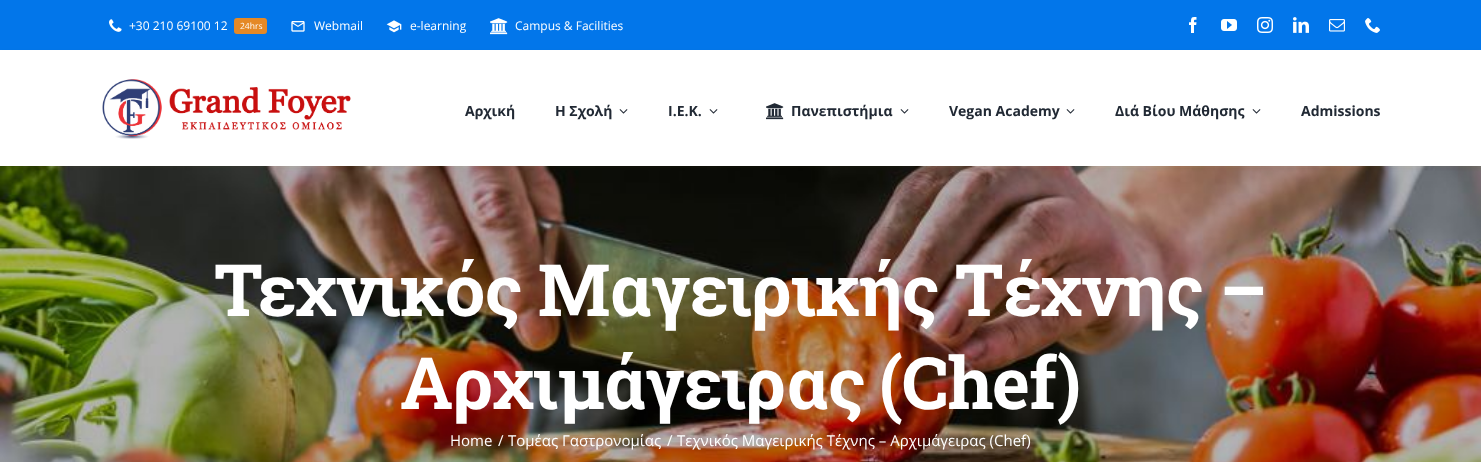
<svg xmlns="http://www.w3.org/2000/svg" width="1481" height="462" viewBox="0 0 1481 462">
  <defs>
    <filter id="blur1" x="-50%" y="-200%" width="200%" height="500%"><feGaussianBlur stdDeviation="2.5"/></filter>
  </defs>
  <rect width="100%" height="100%" fill="#0276ea"/>
  <image x="109" y="19" width="13" height="13" href="img1.png"/>
  <text x="129" y="30" font-family="Open Sans" font-size="12" fill="#ffffff">+30 210 69100 12</text>
  <rect x="234" y="18" width="33" height="16" rx="3" fill="#e58926"/>
  <text x="240" y="29" font-family="Open Sans" font-size="8.5" fill="#ffffff">24hrs</text>
  <image x="291" y="21" width="14" height="11" href="img2.png"/>
  <text x="314" y="30" font-family="Open Sans" font-size="12" fill="#ffffff">Webmail</text>
  <image x="386" y="20" width="16" height="13" href="img3.png"/>
  <text x="410" y="30" font-family="Open Sans" font-size="12" fill="#ffffff">e-learning</text>
  <image x="490" y="18" width="18" height="17" href="img4.png"/>
  <text x="515" y="30" font-family="Open Sans" font-size="12" fill="#ffffff">Campus &amp; Facilities</text>
  <image x="1189" y="17" width="8" height="16" href="img5.png"/>
  <image x="1221" y="19" width="16" height="12" href="img6.png"/>
  <image x="1257" y="17" width="16" height="16" href="img7.png"/>
  <image x="1293" y="17" width="16" height="16" href="img8.png"/>
  <image x="1329" y="19" width="16" height="13" href="img9.png"/>
  <image x="1365" y="18" width="15" height="15" href="img10.png"/>
  <image x="0" y="166" width="1481" height="296" href="img14.png"/>
  <rect x="0" y="52" width="1481" height="116" fill="#50351f" fill-opacity="0.05" filter="url(#blur1)"/>
  <rect x="0" y="50" width="1481" height="116" fill="#ffffff"/>
  <image x="102" y="79" width="249" height="60" href="img11.png"/>
  <text x="465" y="116" font-family="Open Sans" font-size="14" font-weight="bold" fill="#212934">Αρχική</text>
  <text x="555" y="116" font-family="Open Sans" font-size="14" font-weight="bold" fill="#212934">Η Σχολή</text>
  <image x="619" y="109" width="9" height="5" href="img12.png"/>
  <text x="668" y="116" font-family="Open Sans" font-size="14" font-weight="bold" fill="#212934">Ι.Ε.Κ.</text>
  <image x="709" y="109" width="9" height="5" href="img12.png"/>
  <image x="766" y="103" width="18" height="17" href="img13.png"/>
  <text x="791" y="116" font-family="Open Sans" font-size="14" font-weight="bold" fill="#212934">Πανεπιστήμια</text>
  <image x="900" y="109" width="9" height="5" href="img12.png"/>
  <text x="949" y="116" font-family="Open Sans" font-size="14" font-weight="bold" fill="#212934">Vegan Academy</text>
  <image x="1066" y="109" width="9" height="5" href="img12.png"/>
  <text x="1115" y="116" font-family="Open Sans" font-size="14" font-weight="bold" fill="#212934">Διά Βίου Μάθησης</text>
  <image x="1252" y="109" width="9" height="5" href="img12.png"/>
  <text x="1301" y="116" font-family="Open Sans" font-size="14" font-weight="bold" fill="#212934">Admissions</text>
  <text x="214" y="316" font-family="Roboto Slab" font-size="72" font-weight="bold" letter-spacing="-1" fill="#ffffff">Τεχνικός Μαγειρικής Τέχνης –</text>
  <text x="400" y="409" word-spacing="-2" font-family="Roboto Slab" font-size="72" font-weight="bold" letter-spacing="-1" fill="#ffffff">Αρχιμάγειρας (Chef)</text>
  <text x="450" y="446" font-family="Open Sans" font-size="15" fill="#ffffff">Home</text>
  <text x="498" y="446" font-family="Open Sans" font-size="15" fill="#ffffff">/</text>
  <text x="508" y="446" font-family="Open Sans" font-size="15" fill="#ffffff">Tομέας Γαστρονομίας</text>
  <text x="667" y="446" font-family="Open Sans" font-size="15" fill="#ffffff">/</text>
  <text x="677" y="446" font-family="Open Sans" font-size="15" fill="#ffffff">Τεχνικός Μαγειρικής Τέχνης – Αρχιμάγειρας (Chef)</text>
</svg>
